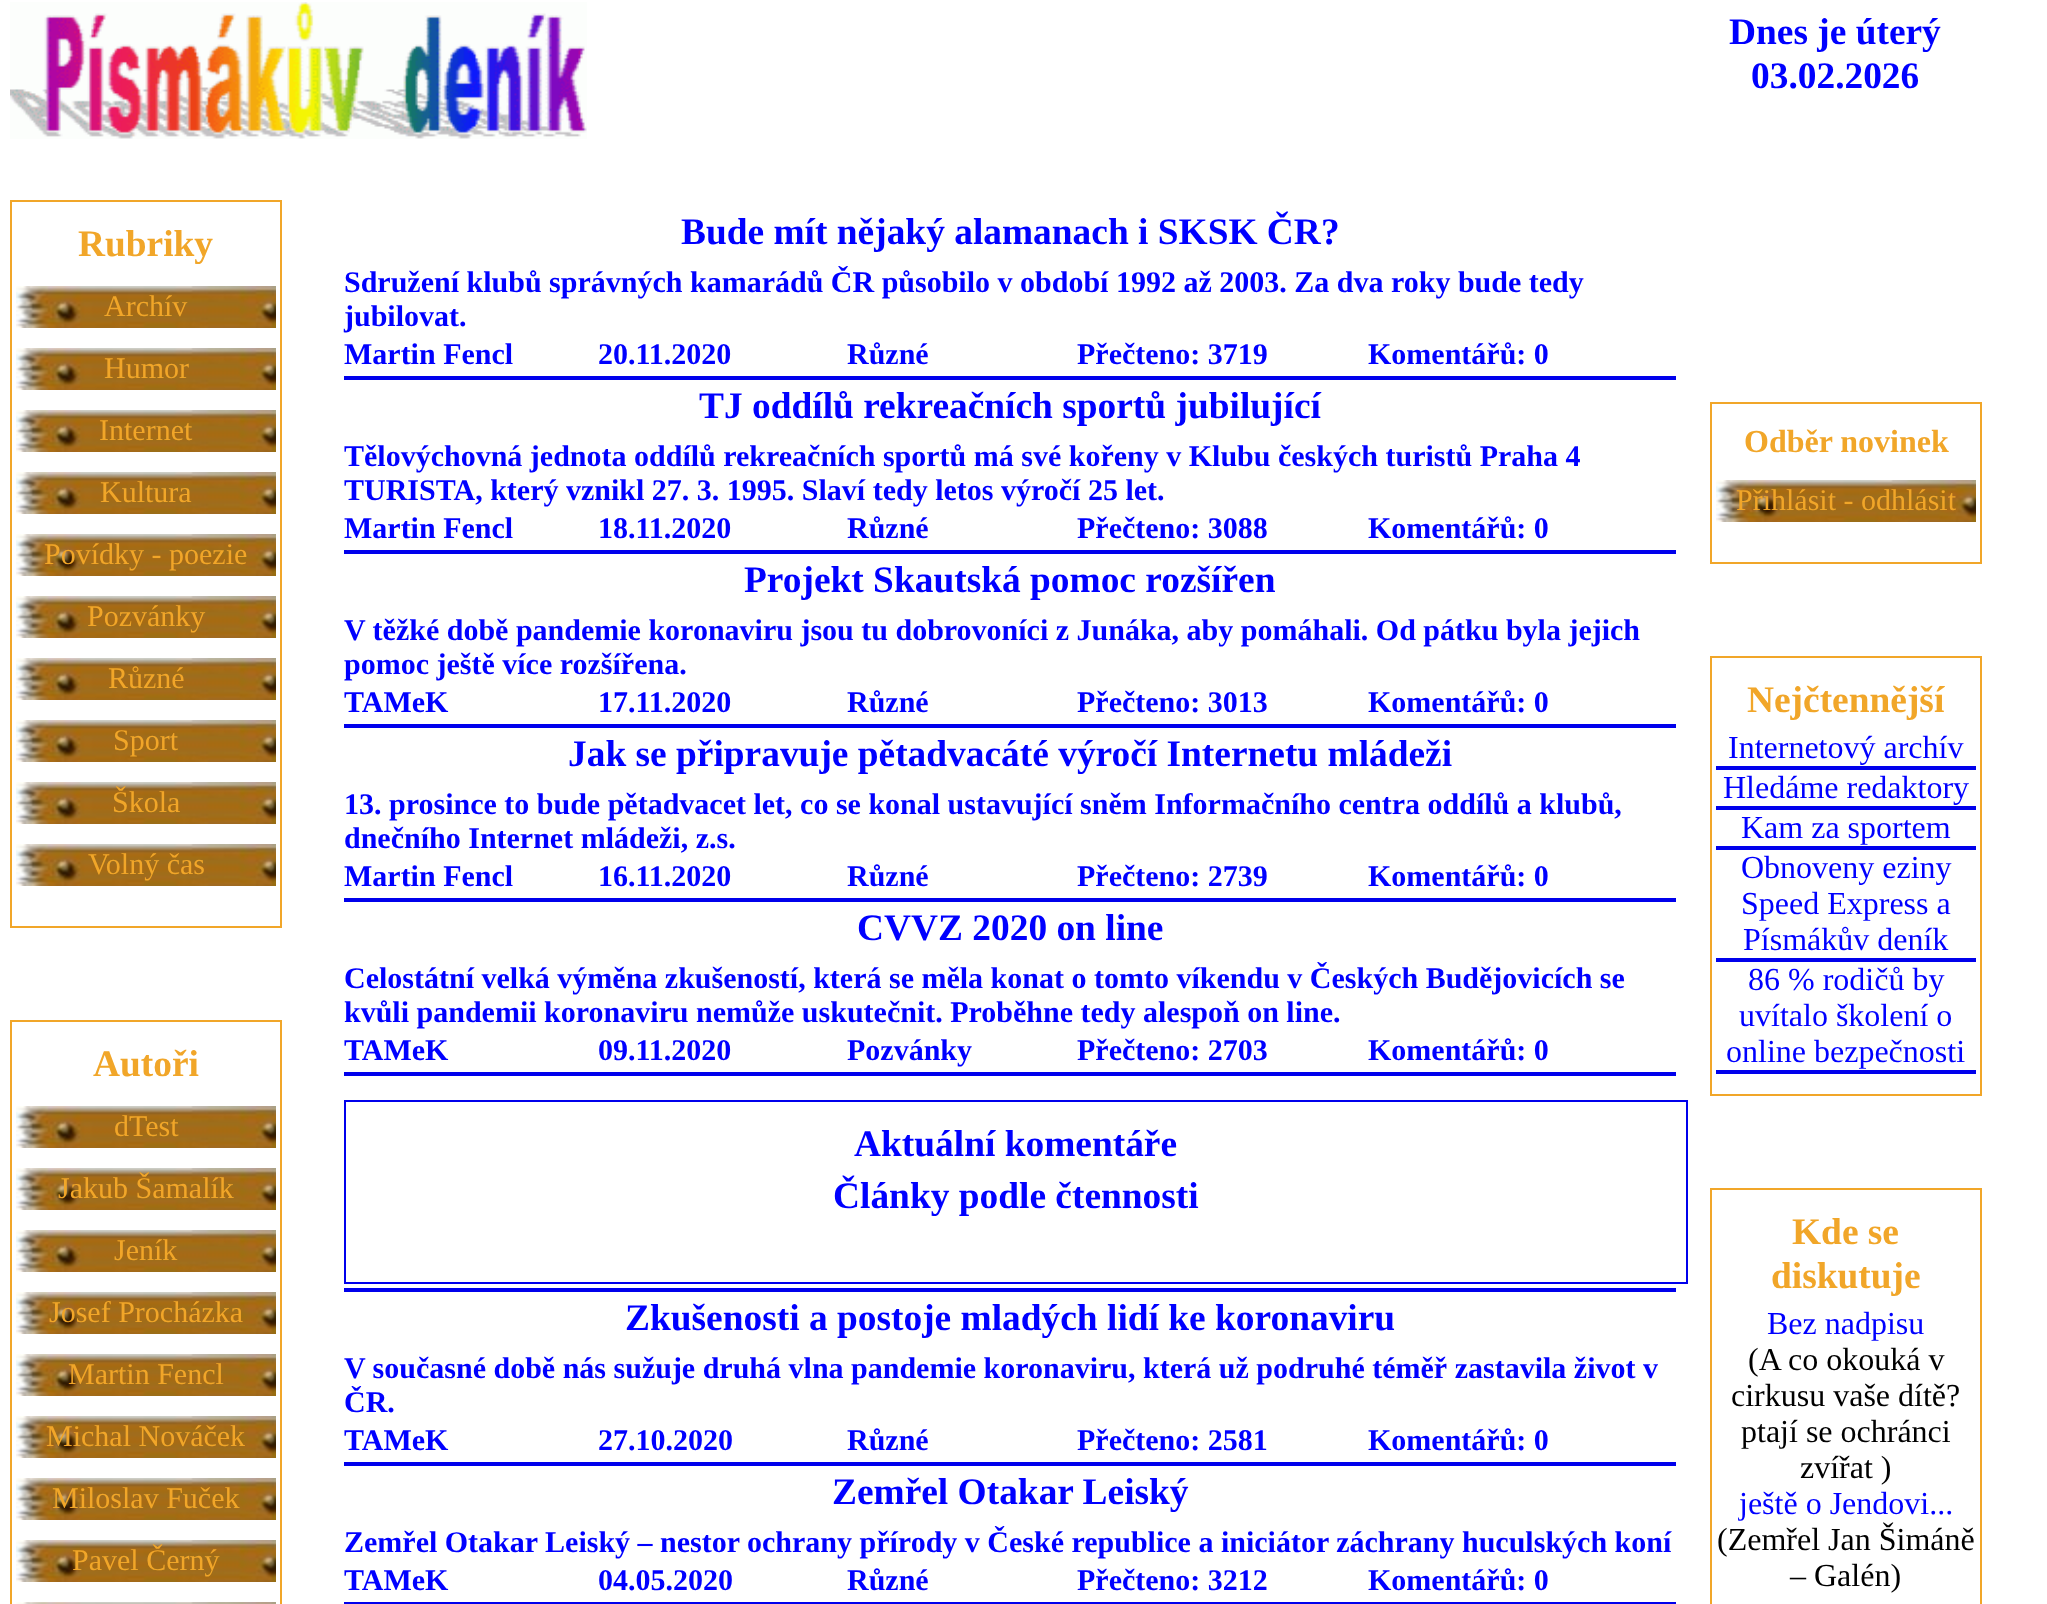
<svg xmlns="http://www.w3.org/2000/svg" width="2047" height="1604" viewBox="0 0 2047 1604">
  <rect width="100%" height="100%" fill="#ffffff"/>
  <image x="10" y="2" width="577" height="137" href="img1.png"/>
  <text x="681" y="244" font-family="Liberation Serif" font-size="37.4" font-weight="bold" fill="#0000ff">Bude mít nějaký alamanach i SKSK ČR?</text>
  <text x="344" y="292" font-family="Liberation Serif" font-size="30" font-weight="bold" fill="#0000ff">Sdružení klubů správných kamarádů ČR působilo v období 1992 až 2003. Za dva roky bude tedy</text>
  <text x="344" y="326" font-family="Liberation Serif" font-size="30" font-weight="bold" fill="#0000ff">jubilovat.</text>
  <text x="344" y="364" font-family="Liberation Serif" font-size="30" font-weight="bold" fill="#0000ff">Martin Fencl</text>
  <text x="598" y="364" font-family="Liberation Serif" font-size="30" font-weight="bold" fill="#0000ff">20.11.2020</text>
  <text x="847" y="364" font-family="Liberation Serif" font-size="30" font-weight="bold" fill="#0000ff">Různé</text>
  <text x="1077" y="364" font-family="Liberation Serif" font-size="30" font-weight="bold" fill="#0000ff">Přečteno: 3719</text>
  <text x="1368" y="364" font-family="Liberation Serif" font-size="30" font-weight="bold" fill="#0000ff">Komentářů: 0</text>
  <rect x="344" y="376" width="1332" height="4" fill="#0000ec"/>
  <text x="699" y="418" font-family="Liberation Serif" font-size="37.4" font-weight="bold" fill="#0000ff">TJ oddílů rekreačních sportů jubilující</text>
  <text x="344" y="466" font-family="Liberation Serif" font-size="30" font-weight="bold" fill="#0000ff">Tělovýchovná jednota oddílů rekreačních sportů má své kořeny v Klubu českých turistů Praha 4</text>
  <text x="344" y="500" font-family="Liberation Serif" font-size="30" font-weight="bold" fill="#0000ff">TURISTA, který vznikl 27. 3. 1995. Slaví tedy letos výročí 25 let.</text>
  <text x="344" y="538" font-family="Liberation Serif" font-size="30" font-weight="bold" fill="#0000ff">Martin Fencl</text>
  <text x="598" y="538" font-family="Liberation Serif" font-size="30" font-weight="bold" fill="#0000ff">18.11.2020</text>
  <text x="847" y="538" font-family="Liberation Serif" font-size="30" font-weight="bold" fill="#0000ff">Různé</text>
  <text x="1077" y="538" font-family="Liberation Serif" font-size="30" font-weight="bold" fill="#0000ff">Přečteno: 3088</text>
  <text x="1368" y="538" font-family="Liberation Serif" font-size="30" font-weight="bold" fill="#0000ff">Komentářů: 0</text>
  <rect x="344" y="550" width="1332" height="4" fill="#0000ec"/>
  <text x="744" y="592" font-family="Liberation Serif" font-size="37.4" font-weight="bold" fill="#0000ff">Projekt Skautská pomoc rozšířen</text>
  <text x="344" y="640" font-family="Liberation Serif" font-size="30" font-weight="bold" fill="#0000ff">V těžké době pandemie koronaviru jsou tu dobrovoníci z Junáka, aby pomáhali. Od pátku byla jejich</text>
  <text x="344" y="674" font-family="Liberation Serif" font-size="30" font-weight="bold" fill="#0000ff">pomoc ještě více rozšířena.</text>
  <text x="344" y="712" font-family="Liberation Serif" font-size="30" font-weight="bold" fill="#0000ff">TAMeK</text>
  <text x="598" y="712" font-family="Liberation Serif" font-size="30" font-weight="bold" fill="#0000ff">17.11.2020</text>
  <text x="847" y="712" font-family="Liberation Serif" font-size="30" font-weight="bold" fill="#0000ff">Různé</text>
  <text x="1077" y="712" font-family="Liberation Serif" font-size="30" font-weight="bold" fill="#0000ff">Přečteno: 3013</text>
  <text x="1368" y="712" font-family="Liberation Serif" font-size="30" font-weight="bold" fill="#0000ff">Komentářů: 0</text>
  <rect x="344" y="724" width="1332" height="4" fill="#0000ec"/>
  <text x="568" y="766" font-family="Liberation Serif" font-size="37.4" font-weight="bold" fill="#0000ff">Jak se připravuje pětadvacáté výročí Internetu mládeži</text>
  <text x="344" y="814" font-family="Liberation Serif" font-size="30" font-weight="bold" fill="#0000ff">13. prosince to bude pětadvacet let, co se konal ustavující sněm Informačního centra oddílů a klubů,</text>
  <text x="344" y="848" font-family="Liberation Serif" font-size="30" font-weight="bold" fill="#0000ff">dnečního Internet mládeži, z.s.</text>
  <text x="344" y="886" font-family="Liberation Serif" font-size="30" font-weight="bold" fill="#0000ff">Martin Fencl</text>
  <text x="598" y="886" font-family="Liberation Serif" font-size="30" font-weight="bold" fill="#0000ff">16.11.2020</text>
  <text x="847" y="886" font-family="Liberation Serif" font-size="30" font-weight="bold" fill="#0000ff">Různé</text>
  <text x="1077" y="886" font-family="Liberation Serif" font-size="30" font-weight="bold" fill="#0000ff">Přečteno: 2739</text>
  <text x="1368" y="886" font-family="Liberation Serif" font-size="30" font-weight="bold" fill="#0000ff">Komentářů: 0</text>
  <rect x="344" y="898" width="1332" height="4" fill="#0000ec"/>
  <text x="857" y="940" font-family="Liberation Serif" font-size="37.4" font-weight="bold" fill="#0000ff">CVVZ 2020 on line</text>
  <text x="344" y="988" font-family="Liberation Serif" font-size="30" font-weight="bold" fill="#0000ff">Celostátní velká výměna zkušeností, která se měla konat o tomto víkendu v Českých Budějovicích se</text>
  <text x="344" y="1022" font-family="Liberation Serif" font-size="30" font-weight="bold" fill="#0000ff">kvůli pandemii koronaviru nemůže uskutečnit. Proběhne tedy alespoň on line.</text>
  <text x="344" y="1060" font-family="Liberation Serif" font-size="30" font-weight="bold" fill="#0000ff">TAMeK</text>
  <text x="598" y="1060" font-family="Liberation Serif" font-size="30" font-weight="bold" fill="#0000ff">09.11.2020</text>
  <text x="847" y="1060" font-family="Liberation Serif" font-size="30" font-weight="bold" fill="#0000ff">Pozvánky</text>
  <text x="1077" y="1060" font-family="Liberation Serif" font-size="30" font-weight="bold" fill="#0000ff">Přečteno: 2703</text>
  <text x="1368" y="1060" font-family="Liberation Serif" font-size="30" font-weight="bold" fill="#0000ff">Komentářů: 0</text>
  <rect x="344" y="1072" width="1332" height="4" fill="#0000ec"/>
  <rect x="345" y="1101" width="1342" height="182" fill="none" stroke="#0000ec" stroke-width="2"/>
  <text x="854" y="1156" font-family="Liberation Serif" font-size="37.4" font-weight="bold" fill="#0000ff">Aktuální komentáře</text>
  <text x="833" y="1208" font-family="Liberation Serif" font-size="37.4" font-weight="bold" fill="#0000ff">Články podle čtennosti</text>
  <rect x="344" y="1288" width="1332" height="4" fill="#0000ec"/>
  <text x="625" y="1330" font-family="Liberation Serif" font-size="37.4" font-weight="bold" fill="#0000ff">Zkušenosti a postoje mladých lidí ke koronaviru</text>
  <text x="344" y="1378" font-family="Liberation Serif" font-size="30" font-weight="bold" fill="#0000ff">V současné době nás sužuje druhá vlna pandemie koronaviru, která už podruhé téměř zastavila život v</text>
  <text x="344" y="1412" font-family="Liberation Serif" font-size="30" font-weight="bold" fill="#0000ff">ČR.</text>
  <text x="344" y="1450" font-family="Liberation Serif" font-size="30" font-weight="bold" fill="#0000ff">TAMeK</text>
  <text x="598" y="1450" font-family="Liberation Serif" font-size="30" font-weight="bold" fill="#0000ff">27.10.2020</text>
  <text x="847" y="1450" font-family="Liberation Serif" font-size="30" font-weight="bold" fill="#0000ff">Různé</text>
  <text x="1077" y="1450" font-family="Liberation Serif" font-size="30" font-weight="bold" fill="#0000ff">Přečteno: 2581</text>
  <text x="1368" y="1450" font-family="Liberation Serif" font-size="30" font-weight="bold" fill="#0000ff">Komentářů: 0</text>
  <rect x="344" y="1462" width="1332" height="4" fill="#0000ec"/>
  <text x="832" y="1504" font-family="Liberation Serif" font-size="37.4" font-weight="bold" fill="#0000ff">Zemřel Otakar Leiský</text>
  <text x="344" y="1552" font-family="Liberation Serif" font-size="30" font-weight="bold" fill="#0000ff">Zemřel Otakar Leiský – nestor ochrany přírody v České republice a iniciátor záchrany huculských koní</text>
  <text x="344" y="1590" font-family="Liberation Serif" font-size="30" font-weight="bold" fill="#0000ff">TAMeK</text>
  <text x="598" y="1590" font-family="Liberation Serif" font-size="30" font-weight="bold" fill="#0000ff">04.05.2020</text>
  <text x="847" y="1590" font-family="Liberation Serif" font-size="30" font-weight="bold" fill="#0000ff">Různé</text>
  <text x="1077" y="1590" font-family="Liberation Serif" font-size="30" font-weight="bold" fill="#0000ff">Přečteno: 3212</text>
  <text x="1368" y="1590" font-family="Liberation Serif" font-size="30" font-weight="bold" fill="#0000ff">Komentářů: 0</text>
  <rect x="344" y="1602" width="1332" height="2" fill="#0000ec"/>
  <text x="1729" y="44" font-family="Liberation Serif" font-size="37.4" font-weight="bold" fill="#0000ff">Dnes je úterý</text>
  <text x="1751" y="88" font-family="Liberation Serif" font-size="37.4" font-weight="bold" fill="#0000ff">03.02.2026</text>
  <rect x="1711" y="403" width="270" height="160" fill="none" stroke="#f1a629" stroke-width="2"/>
  <text x="1744" y="452" font-family="Liberation Serif" font-size="32" font-weight="bold" fill="#f1a629">Odběr novinek</text>
  <image x="1716" y="480" width="260" height="42" href="img2.png"/>
  <text x="1736" y="510" font-family="Liberation Serif" font-size="30" fill="#f1a629">Přihlásit - odhlásit</text>
  <rect x="1711" y="657" width="270" height="438" fill="none" stroke="#f1a629" stroke-width="2"/>
  <text x="1747" y="712" font-family="Liberation Serif" font-size="37.4" font-weight="bold" fill="#f1a629">Nejčtennější</text>
  <text x="1728" y="758" font-family="Liberation Serif" font-size="32" fill="#0000ff">Internetový archív</text>
  <rect x="1716" y="766" width="260" height="4" fill="#0000ec"/>
  <text x="1723" y="798" font-family="Liberation Serif" font-size="32" fill="#0000ff">Hledáme redaktory</text>
  <rect x="1716" y="806" width="260" height="4" fill="#0000ec"/>
  <text x="1741" y="838" font-family="Liberation Serif" font-size="32" fill="#0000ff">Kam za sportem</text>
  <rect x="1716" y="846" width="260" height="4" fill="#0000ec"/>
  <text x="1741" y="878" font-family="Liberation Serif" font-size="32" fill="#0000ff">Obnoveny eziny</text>
  <text x="1741" y="914" font-family="Liberation Serif" font-size="32" fill="#0000ff">Speed Express a</text>
  <text x="1743" y="950" font-family="Liberation Serif" font-size="32" fill="#0000ff">Písmákův deník</text>
  <rect x="1716" y="958" width="260" height="4" fill="#0000ec"/>
  <text x="1748" y="990" font-family="Liberation Serif" font-size="32" fill="#0000ff">86 % rodičů by</text>
  <text x="1739" y="1026" font-family="Liberation Serif" font-size="32" fill="#0000ff">uvítalo školení o</text>
  <text x="1726" y="1062" font-family="Liberation Serif" font-size="32" fill="#0000ff">online bezpečnosti</text>
  <rect x="1716" y="1070" width="260" height="4" fill="#0000ec"/>
  <rect x="1711" y="1189" width="270" height="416" fill="none" stroke="#f1a629" stroke-width="2"/>
  <text x="1792" y="1244" font-family="Liberation Serif" font-size="37.4" font-weight="bold" fill="#f1a629">Kde se</text>
  <text x="1771" y="1288" font-family="Liberation Serif" font-size="37.4" font-weight="bold" fill="#f1a629">diskutuje</text>
  <text x="1767" y="1334" font-family="Liberation Serif" font-size="32" fill="#0000ff">Bez nadpisu</text>
  <text x="1748" y="1370" font-family="Liberation Serif" font-size="32" fill="#000000">(A co okouká v</text>
  <text x="1731" y="1406" font-family="Liberation Serif" font-size="32" fill="#000000">cirkusu vaše dítě?</text>
  <text x="1741" y="1442" font-family="Liberation Serif" font-size="32" fill="#000000">ptají se ochránci</text>
  <text x="1800" y="1478" font-family="Liberation Serif" font-size="32" fill="#000000">zvířat )</text>
  <text x="1739" y="1514" font-family="Liberation Serif" font-size="32" fill="#0000ff">ještě o Jendovi...</text>
  <text x="1717" y="1550" font-family="Liberation Serif" font-size="32" fill="#000000">(Zemřel Jan Šimáně</text>
  <text x="1790" y="1586" font-family="Liberation Serif" font-size="32" fill="#000000">– Galén)</text>
  <rect x="11" y="201" width="270" height="726" fill="none" stroke="#f1a629" stroke-width="2"/>
  <text x="78" y="256" font-family="Liberation Serif" font-size="37.4" font-weight="bold" fill="#f1a629">Rubriky</text>
  <image x="16" y="286" width="260" height="42" href="img2.png"/>
  <text x="104" y="316" font-family="Liberation Serif" font-size="30" fill="#f1a629">Archív</text>
  <image x="16" y="348" width="260" height="42" href="img2.png"/>
  <text x="104" y="378" font-family="Liberation Serif" font-size="30" fill="#f1a629">Humor</text>
  <image x="16" y="410" width="260" height="42" href="img2.png"/>
  <text x="99" y="440" font-family="Liberation Serif" font-size="30" fill="#f1a629">Internet</text>
  <image x="16" y="472" width="260" height="42" href="img2.png"/>
  <text x="100" y="502" font-family="Liberation Serif" font-size="30" fill="#f1a629">Kultura</text>
  <image x="16" y="534" width="260" height="42" href="img2.png"/>
  <text x="44" y="564" font-family="Liberation Serif" font-size="30" fill="#f1a629">Povídky - poezie</text>
  <image x="16" y="596" width="260" height="42" href="img2.png"/>
  <text x="87" y="626" font-family="Liberation Serif" font-size="30" fill="#f1a629">Pozvánky</text>
  <image x="16" y="658" width="260" height="42" href="img2.png"/>
  <text x="108" y="688" font-family="Liberation Serif" font-size="30" fill="#f1a629">Různé</text>
  <image x="16" y="720" width="260" height="42" href="img2.png"/>
  <text x="113" y="750" font-family="Liberation Serif" font-size="30" fill="#f1a629">Sport</text>
  <image x="16" y="782" width="260" height="42" href="img2.png"/>
  <text x="112" y="812" font-family="Liberation Serif" font-size="30" fill="#f1a629">Škola</text>
  <image x="16" y="844" width="260" height="42" href="img2.png"/>
  <text x="88" y="874" font-family="Liberation Serif" font-size="30" fill="#f1a629">Volný čas</text>
  <rect x="11" y="1021" width="270" height="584" fill="none" stroke="#f1a629" stroke-width="2"/>
  <text x="93" y="1076" font-family="Liberation Serif" font-size="37.4" font-weight="bold" fill="#f1a629">Autoři</text>
  <image x="16" y="1106" width="260" height="42" href="img2.png"/>
  <text x="114" y="1136" font-family="Liberation Serif" font-size="30" fill="#f1a629">dTest</text>
  <image x="16" y="1168" width="260" height="42" href="img2.png"/>
  <text x="58" y="1198" font-family="Liberation Serif" font-size="30" fill="#f1a629">Jakub Šamalík</text>
  <image x="16" y="1230" width="260" height="42" href="img2.png"/>
  <text x="114" y="1260" font-family="Liberation Serif" font-size="30" fill="#f1a629">Jeník</text>
  <image x="16" y="1292" width="260" height="42" href="img2.png"/>
  <text x="49" y="1322" font-family="Liberation Serif" font-size="30" fill="#f1a629">Josef Procházka</text>
  <image x="16" y="1354" width="260" height="42" href="img2.png"/>
  <text x="68" y="1384" font-family="Liberation Serif" font-size="30" fill="#f1a629">Martin Fencl</text>
  <image x="16" y="1416" width="260" height="42" href="img2.png"/>
  <text x="46" y="1446" font-family="Liberation Serif" font-size="30" fill="#f1a629">Michal Nováček</text>
  <image x="16" y="1478" width="260" height="42" href="img2.png"/>
  <text x="52" y="1508" font-family="Liberation Serif" font-size="30" fill="#f1a629">Miloslav Fuček</text>
  <image x="16" y="1540" width="260" height="42" href="img2.png"/>
  <text x="72" y="1570" font-family="Liberation Serif" font-size="30" fill="#f1a629">Pavel Černý</text>
  <image x="16" y="1602" width="260" height="2" href="img3.png"/>
</svg>
